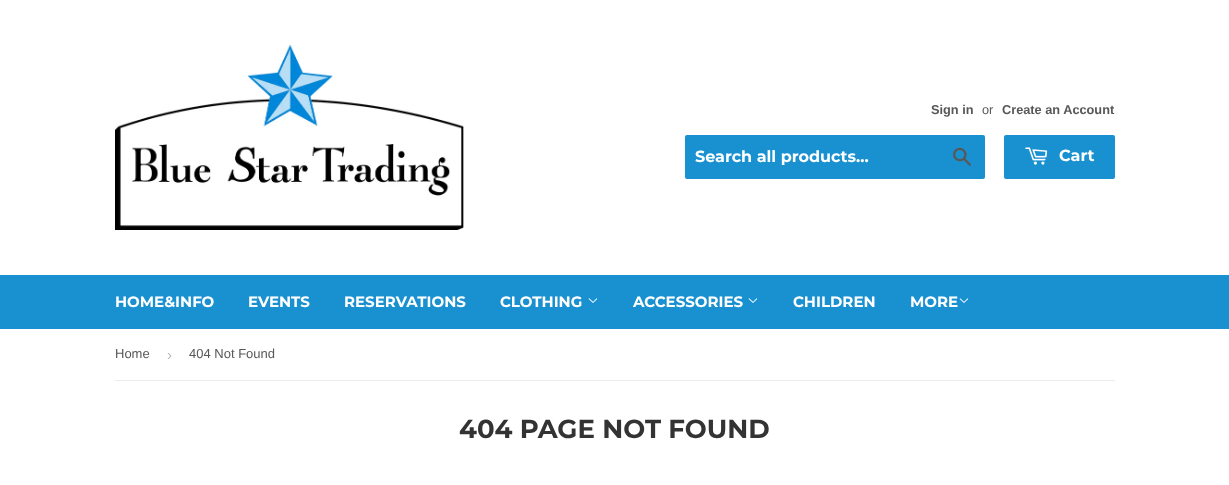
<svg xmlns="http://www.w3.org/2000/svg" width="1229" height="485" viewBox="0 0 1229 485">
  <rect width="100%" height="100%" fill="#ffffff"/>
  <image x="115" y="45" width="349" height="185" href="img1.png"/>
  <text x="931" y="114" font-family="Liberation Sans" font-size="12.75" font-weight="bold" fill="#585858">Sign in</text>
  <text x="982" y="114" font-family="Liberation Sans" font-size="12.75" fill="#585858">or</text>
  <text x="1002" y="114" font-family="Liberation Sans" font-size="12.75" font-weight="bold" fill="#585858">Create an Account</text>
  <rect x="685" y="135" width="300" height="44" rx="2" fill="#1991d1"/>
  <text x="695" y="162" font-family="Montserrat" font-size="16" font-weight="100" fill="#ffffff">Search all products...</text>
  <image x="953" y="147" width="18" height="19" href="img2.png"/>
  <rect x="1004" y="135" width="111" height="44" rx="2" fill="#1991d1"/>
  <image x="1025" y="147" width="23" height="18" href="img3.png"/>
  <text x="1059" y="161" font-family="Montserrat" font-size="16" font-weight="100" fill="#ffffff">Cart</text>
  <rect x="0" y="275" width="1229" height="54" fill="#1991d1"/>
  <text x="115" y="307" font-family="Montserrat" font-size="15" font-weight="100" fill="#ffffff">HOME&amp;INFO</text>
  <text x="248" y="307" font-family="Montserrat" font-size="15" font-weight="100" fill="#ffffff">EVENTS</text>
  <text x="344" y="307" font-family="Montserrat" font-size="15" font-weight="100" fill="#ffffff">RESERVATIONS</text>
  <text x="500" y="307" font-family="Montserrat" font-size="15" font-weight="100" fill="#ffffff">CLOTHING</text>
  <image x="588" y="298" width="10" height="5" href="img4.png"/>
  <text x="633" y="307" font-family="Montserrat" font-size="15" font-weight="100" fill="#ffffff">ACCESSORIES</text>
  <image x="748" y="298" width="10" height="5" href="img4.png"/>
  <text x="793" y="307" font-family="Montserrat" font-size="15" font-weight="100" fill="#ffffff">CHILDREN</text>
  <text x="910" y="307" font-family="Montserrat" font-size="15" font-weight="100" fill="#ffffff">MORE</text>
  <image x="959" y="298" width="10" height="5" href="img4.png"/>
  <rect x="115" y="380" width="1000" height="1" fill="#ececec"/>
  <text x="115" y="358" font-family="Liberation Sans" font-size="13" fill="#585858">Home</text>
  <text x="167" y="360" font-family="Liberation Sans" font-size="15" fill="#bbbbbb">›</text>
  <text x="189" y="358" font-family="Liberation Sans" font-size="13" fill="#585858">404 Not Found</text>
  <text x="459" y="438" font-family="Montserrat" font-size="26" font-weight="100" fill="#333333">404 PAGE NOT FOUND</text>
</svg>
